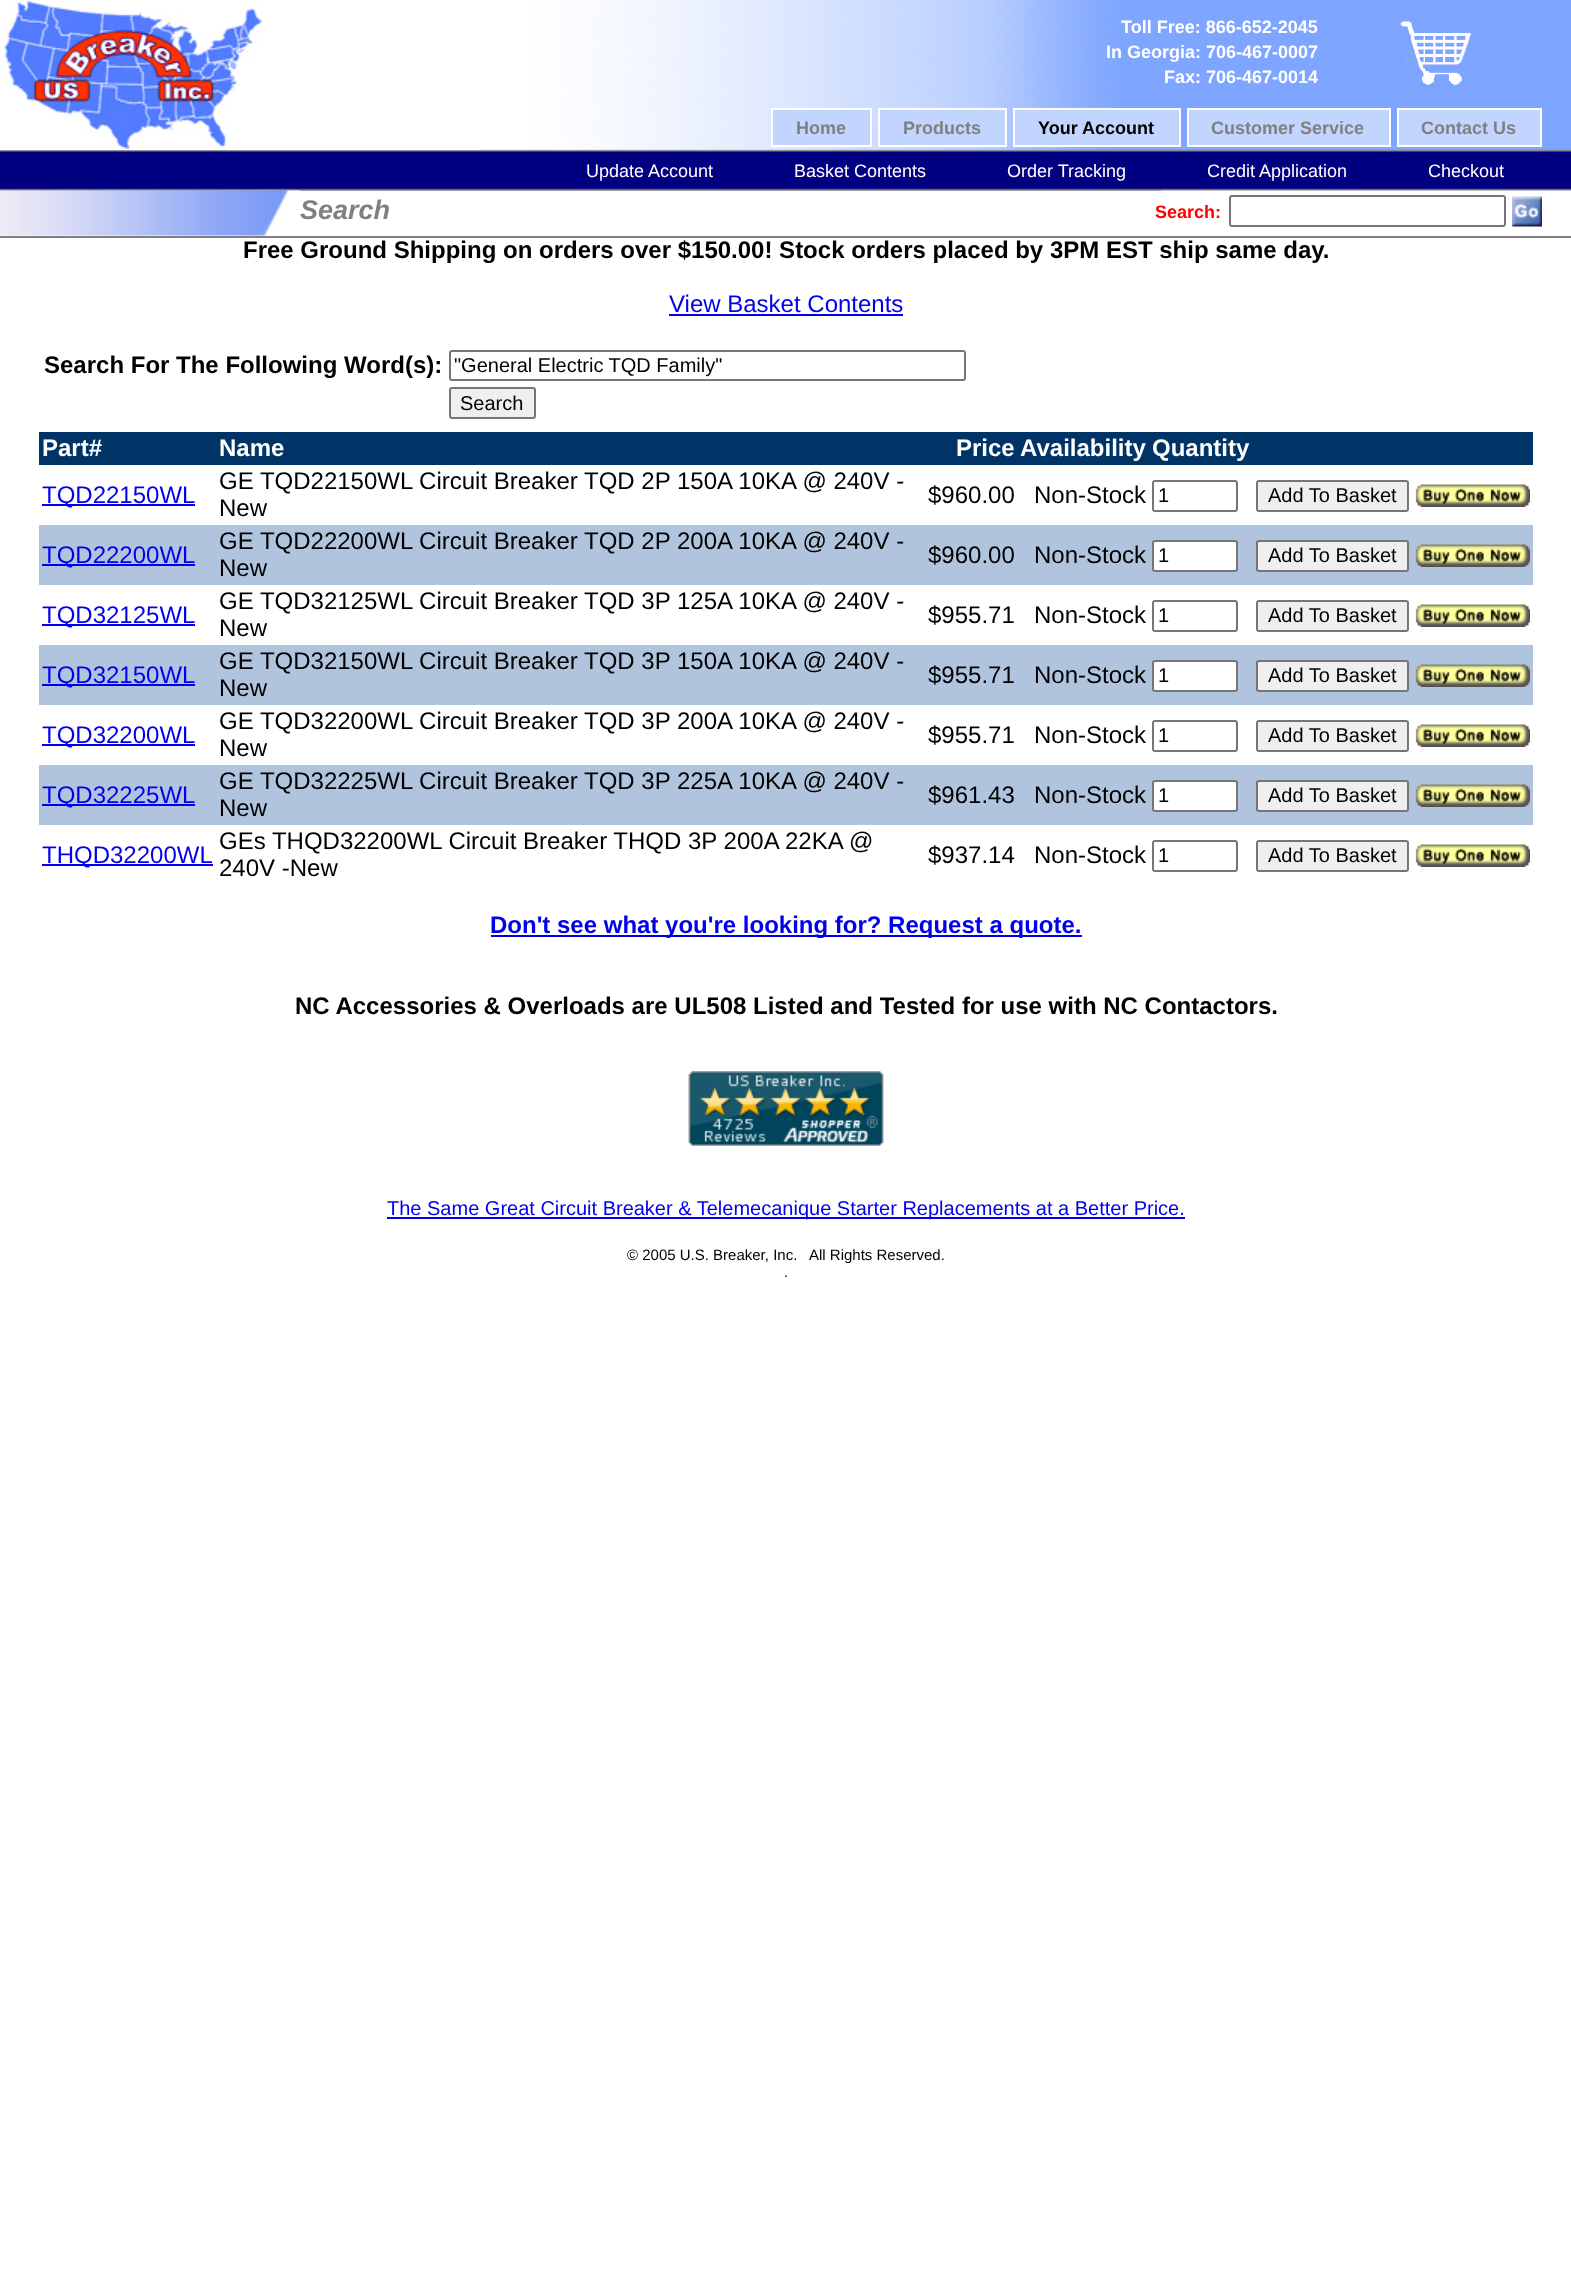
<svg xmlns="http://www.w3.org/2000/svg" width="1571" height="2287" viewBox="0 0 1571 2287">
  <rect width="100%" height="100%" fill="#ffffff"/>
  <image x="0" y="0" width="1571" height="191" href="img1.png"/>
  <image x="0" y="0" width="1161" height="191" href="img2.png"/>
  <image x="0" y="1" width="480" height="149" href="img3.png"/>
  <text x="1121" y="33" font-family="Liberation Sans" font-size="18" font-weight="bold" fill="#ffffff">Toll Free: 866-652-2045</text>
  <text x="1106" y="58" font-family="Liberation Sans" font-size="18" font-weight="bold" fill="#ffffff">In Georgia: 706-467-0007</text>
  <text x="1164" y="83" font-family="Liberation Sans" font-size="18" font-weight="bold" fill="#ffffff">Fax: 706-467-0014</text>
  <image x="1399" y="21" width="73" height="66" href="img4.png"/>
  <rect x="772" y="109" width="99" height="37" fill="#c2d5ff" stroke="#ffffff" stroke-width="2"/>
  <text x="796" y="134" font-family="Liberation Sans" font-size="18" font-weight="bold" fill="#808080">Home</text>
  <rect x="879" y="109" width="127" height="37" fill="#c2d5ff" stroke="#ffffff" stroke-width="2"/>
  <text x="903" y="134" font-family="Liberation Sans" font-size="18" font-weight="bold" fill="#808080">Products</text>
  <rect x="1014" y="109" width="166" height="37" fill="#c2d5ff" stroke="#ffffff" stroke-width="2"/>
  <text x="1038" y="134" font-family="Liberation Sans" font-size="18" font-weight="bold" fill="#000000">Your Account</text>
  <rect x="1188" y="109" width="202" height="37" fill="#c2d5ff" stroke="#ffffff" stroke-width="2"/>
  <text x="1211" y="134" font-family="Liberation Sans" font-size="18" font-weight="bold" fill="#808080">Customer Service</text>
  <rect x="1398" y="109" width="143" height="37" fill="#c2d5ff" stroke="#ffffff" stroke-width="2"/>
  <text x="1421" y="134" font-family="Liberation Sans" font-size="18" font-weight="bold" fill="#808080">Contact Us</text>
  <text x="586" y="177" font-family="Liberation Sans" font-size="18" fill="#ffffff">Update Account</text>
  <text x="794" y="177" font-family="Liberation Sans" font-size="18" fill="#ffffff">Basket Contents</text>
  <text x="1007" y="177" font-family="Liberation Sans" font-size="18" fill="#ffffff">Order Tracking</text>
  <text x="1207" y="177" font-family="Liberation Sans" font-size="18" fill="#ffffff">Credit Application</text>
  <text x="1428" y="177" font-family="Liberation Sans" font-size="18" fill="#ffffff">Checkout</text>
  <rect x="0" y="236" width="1571" height="2" fill="#808080"/>
  <image x="0" y="190" width="300" height="46" href="img5.png"/>
  <text x="300" y="219" font-family="Liberation Sans" font-size="27" font-weight="bold" font-style="italic" fill="#808080">Search</text>
  <text x="1155" y="218" font-family="Liberation Sans" font-size="18" font-weight="bold" fill="#ff0000">Search:</text>
  <rect x="1230" y="196" width="275" height="30" rx="2" fill="none" stroke="#767676" stroke-width="2"/>
  <image x="1512" y="196" width="30" height="31" href="img6.png"/>
  <text x="243" y="258" font-family="Liberation Sans" font-size="24" font-weight="bold" fill="#000000">Free Ground Shipping on orders over $150.00! Stock orders placed by 3PM EST ship same day.</text>
  <text x="669" y="312" font-family="Liberation Sans" font-size="24" fill="#0000ee">View Basket Contents</text>
  <rect x="669" y="314" width="234" height="2" fill="#0000ee"/>
  <text x="44" y="373" font-family="Liberation Sans" font-size="24" font-weight="bold" fill="#000000">Search For The Following Word(s):</text>
  <rect x="450" y="351" width="515" height="29" rx="2" fill="none" stroke="#767676" stroke-width="2"/>
  <text x="454" y="372" font-family="Liberation Sans" font-size="20" fill="#000000">"General Electric TQD Family"</text>
  <rect x="450" y="388" width="85" height="30" rx="2" fill="#efefef" stroke="#767676" stroke-width="2"/>
  <text x="460" y="410" font-family="Liberation Sans" font-size="20" fill="#000000">Search</text>
  <rect x="39" y="432" width="1494" height="33" fill="#003366"/>
  <text x="42" y="456" font-family="Liberation Sans" font-size="24" font-weight="bold" fill="#ffffff">Part#</text>
  <text x="219" y="456" font-family="Liberation Sans" font-size="24" font-weight="bold" fill="#ffffff">Name</text>
  <text x="956" y="456" font-family="Liberation Sans" font-size="24" font-weight="bold" fill="#ffffff">Price</text>
  <text x="1020" y="456" font-family="Liberation Sans" font-size="24" font-weight="bold" fill="#ffffff">Availability</text>
  <text x="1152" y="456" font-family="Liberation Sans" font-size="24" font-weight="bold" fill="#ffffff">Quantity</text>
  <rect x="42" y="504" width="153" height="2" fill="#0000ee"/>
  <text x="42" y="503" font-family="Liberation Sans" font-size="24" fill="#0000ee">TQD22150WL</text>
  <text x="219" y="489" font-family="Liberation Sans" font-size="24" fill="#000000">GE TQD22150WL Circuit Breaker TQD 2P 150A 10KA @ 240V -</text>
  <text x="219" y="516" font-family="Liberation Sans" font-size="24" fill="#000000">New</text>
  <text x="928" y="503" font-family="Liberation Sans" font-size="24" fill="#000000">$960.00</text>
  <text x="1034" y="503" font-family="Liberation Sans" font-size="24" fill="#000000">Non-Stock</text>
  <rect x="1153" y="481" width="84" height="30" rx="2" fill="none" stroke="#767676" stroke-width="2"/>
  <text x="1158" y="502" font-family="Liberation Sans" font-size="20" fill="#000000">1</text>
  <rect x="1257" y="481" width="151" height="30" rx="2" fill="#efefef" stroke="#767676" stroke-width="2"/>
  <text x="1268" y="502" font-family="Liberation Sans" font-size="20" fill="#000000">Add To Basket</text>
  <image x="1415" y="484" width="115" height="23" href="img7.png"/>
  <rect x="39" y="525" width="1494" height="60" fill="#b0c4de"/>
  <rect x="42" y="564" width="153" height="2" fill="#0000ee"/>
  <text x="42" y="563" font-family="Liberation Sans" font-size="24" fill="#0000ee">TQD22200WL</text>
  <text x="219" y="549" font-family="Liberation Sans" font-size="24" fill="#000000">GE TQD22200WL Circuit Breaker TQD 2P 200A 10KA @ 240V -</text>
  <text x="219" y="576" font-family="Liberation Sans" font-size="24" fill="#000000">New</text>
  <text x="928" y="563" font-family="Liberation Sans" font-size="24" fill="#000000">$960.00</text>
  <text x="1034" y="563" font-family="Liberation Sans" font-size="24" fill="#000000">Non-Stock</text>
  <rect x="1153" y="541" width="84" height="30" rx="2" fill="#ffffff" stroke="#767676" stroke-width="2"/>
  <text x="1158" y="562" font-family="Liberation Sans" font-size="20" fill="#000000">1</text>
  <rect x="1257" y="541" width="151" height="30" rx="2" fill="#efefef" stroke="#767676" stroke-width="2"/>
  <text x="1268" y="562" font-family="Liberation Sans" font-size="20" fill="#000000">Add To Basket</text>
  <image x="1415" y="544" width="115" height="23" href="img8.png"/>
  <rect x="42" y="624" width="153" height="2" fill="#0000ee"/>
  <text x="42" y="623" font-family="Liberation Sans" font-size="24" fill="#0000ee">TQD32125WL</text>
  <text x="219" y="609" font-family="Liberation Sans" font-size="24" fill="#000000">GE TQD32125WL Circuit Breaker TQD 3P 125A 10KA @ 240V -</text>
  <text x="219" y="636" font-family="Liberation Sans" font-size="24" fill="#000000">New</text>
  <text x="928" y="623" font-family="Liberation Sans" font-size="24" fill="#000000">$955.71</text>
  <text x="1034" y="623" font-family="Liberation Sans" font-size="24" fill="#000000">Non-Stock</text>
  <rect x="1153" y="601" width="84" height="30" rx="2" fill="none" stroke="#767676" stroke-width="2"/>
  <text x="1158" y="622" font-family="Liberation Sans" font-size="20" fill="#000000">1</text>
  <rect x="1257" y="601" width="151" height="30" rx="2" fill="#efefef" stroke="#767676" stroke-width="2"/>
  <text x="1268" y="622" font-family="Liberation Sans" font-size="20" fill="#000000">Add To Basket</text>
  <image x="1415" y="604" width="115" height="23" href="img7.png"/>
  <rect x="39" y="645" width="1494" height="60" fill="#b0c4de"/>
  <rect x="42" y="684" width="153" height="2" fill="#0000ee"/>
  <text x="42" y="683" font-family="Liberation Sans" font-size="24" fill="#0000ee">TQD32150WL</text>
  <text x="219" y="669" font-family="Liberation Sans" font-size="24" fill="#000000">GE TQD32150WL Circuit Breaker TQD 3P 150A 10KA @ 240V -</text>
  <text x="219" y="696" font-family="Liberation Sans" font-size="24" fill="#000000">New</text>
  <text x="928" y="683" font-family="Liberation Sans" font-size="24" fill="#000000">$955.71</text>
  <text x="1034" y="683" font-family="Liberation Sans" font-size="24" fill="#000000">Non-Stock</text>
  <rect x="1153" y="661" width="84" height="30" rx="2" fill="#ffffff" stroke="#767676" stroke-width="2"/>
  <text x="1158" y="682" font-family="Liberation Sans" font-size="20" fill="#000000">1</text>
  <rect x="1257" y="661" width="151" height="30" rx="2" fill="#efefef" stroke="#767676" stroke-width="2"/>
  <text x="1268" y="682" font-family="Liberation Sans" font-size="20" fill="#000000">Add To Basket</text>
  <image x="1415" y="664" width="115" height="23" href="img8.png"/>
  <rect x="42" y="744" width="153" height="2" fill="#0000ee"/>
  <text x="42" y="743" font-family="Liberation Sans" font-size="24" fill="#0000ee">TQD32200WL</text>
  <text x="219" y="729" font-family="Liberation Sans" font-size="24" fill="#000000">GE TQD32200WL Circuit Breaker TQD 3P 200A 10KA @ 240V -</text>
  <text x="219" y="756" font-family="Liberation Sans" font-size="24" fill="#000000">New</text>
  <text x="928" y="743" font-family="Liberation Sans" font-size="24" fill="#000000">$955.71</text>
  <text x="1034" y="743" font-family="Liberation Sans" font-size="24" fill="#000000">Non-Stock</text>
  <rect x="1153" y="721" width="84" height="30" rx="2" fill="none" stroke="#767676" stroke-width="2"/>
  <text x="1158" y="742" font-family="Liberation Sans" font-size="20" fill="#000000">1</text>
  <rect x="1257" y="721" width="151" height="30" rx="2" fill="#efefef" stroke="#767676" stroke-width="2"/>
  <text x="1268" y="742" font-family="Liberation Sans" font-size="20" fill="#000000">Add To Basket</text>
  <image x="1415" y="724" width="115" height="23" href="img7.png"/>
  <rect x="39" y="765" width="1494" height="60" fill="#b0c4de"/>
  <rect x="42" y="804" width="153" height="2" fill="#0000ee"/>
  <text x="42" y="803" font-family="Liberation Sans" font-size="24" fill="#0000ee">TQD32225WL</text>
  <text x="219" y="789" font-family="Liberation Sans" font-size="24" fill="#000000">GE TQD32225WL Circuit Breaker TQD 3P 225A 10KA @ 240V -</text>
  <text x="219" y="816" font-family="Liberation Sans" font-size="24" fill="#000000">New</text>
  <text x="928" y="803" font-family="Liberation Sans" font-size="24" fill="#000000">$961.43</text>
  <text x="1034" y="803" font-family="Liberation Sans" font-size="24" fill="#000000">Non-Stock</text>
  <rect x="1153" y="781" width="84" height="30" rx="2" fill="#ffffff" stroke="#767676" stroke-width="2"/>
  <text x="1158" y="802" font-family="Liberation Sans" font-size="20" fill="#000000">1</text>
  <rect x="1257" y="781" width="151" height="30" rx="2" fill="#efefef" stroke="#767676" stroke-width="2"/>
  <text x="1268" y="802" font-family="Liberation Sans" font-size="20" fill="#000000">Add To Basket</text>
  <image x="1415" y="784" width="115" height="23" href="img8.png"/>
  <rect x="42" y="864" width="171" height="2" fill="#0000ee"/>
  <text x="42" y="863" font-family="Liberation Sans" font-size="24" fill="#0000ee">THQD32200WL</text>
  <text x="219" y="849" font-family="Liberation Sans" font-size="24" fill="#000000">GEs THQD32200WL Circuit Breaker THQD 3P 200A 22KA @</text>
  <text x="219" y="876" font-family="Liberation Sans" font-size="24" fill="#000000">240V -New</text>
  <text x="928" y="863" font-family="Liberation Sans" font-size="24" fill="#000000">$937.14</text>
  <text x="1034" y="863" font-family="Liberation Sans" font-size="24" fill="#000000">Non-Stock</text>
  <rect x="1153" y="841" width="84" height="30" rx="2" fill="none" stroke="#767676" stroke-width="2"/>
  <text x="1158" y="862" font-family="Liberation Sans" font-size="20" fill="#000000">1</text>
  <rect x="1257" y="841" width="151" height="30" rx="2" fill="#efefef" stroke="#767676" stroke-width="2"/>
  <text x="1268" y="862" font-family="Liberation Sans" font-size="20" fill="#000000">Add To Basket</text>
  <image x="1415" y="844" width="115" height="23" href="img7.png"/>
  <rect x="491" y="935" width="591" height="2" fill="#0000ee"/>
  <text x="490" y="933" font-family="Liberation Sans" font-size="24" font-weight="bold" fill="#0000ee">Don't see what you're looking for? Request a quote.</text>
  <text x="295" y="1014" font-family="Liberation Sans" font-size="24" font-weight="bold" fill="#000000">NC Accessories &amp; Overloads are UL508 Listed and Tested for use with NC Contactors.</text>
  <image x="688" y="1071" width="196" height="75" href="img9.png"/>
  <rect x="387" y="1217" width="798" height="2" fill="#0000ee"/>
  <text x="387" y="1215" font-family="Liberation Sans" font-size="20" fill="#0000ee">The Same Great Circuit Breaker &amp; Telemecanique Starter Replacements at a Better Price.</text>
  <text x="627" y="1260" font-family="Liberation Sans" font-size="15" fill="#000000" xml:space="preserve">© 2005 U.S. Breaker, Inc.   All Rights Reserved.</text>
  <text x="784" y="1277" font-family="Liberation Sans" font-size="15" fill="#000000">.</text>
</svg>
